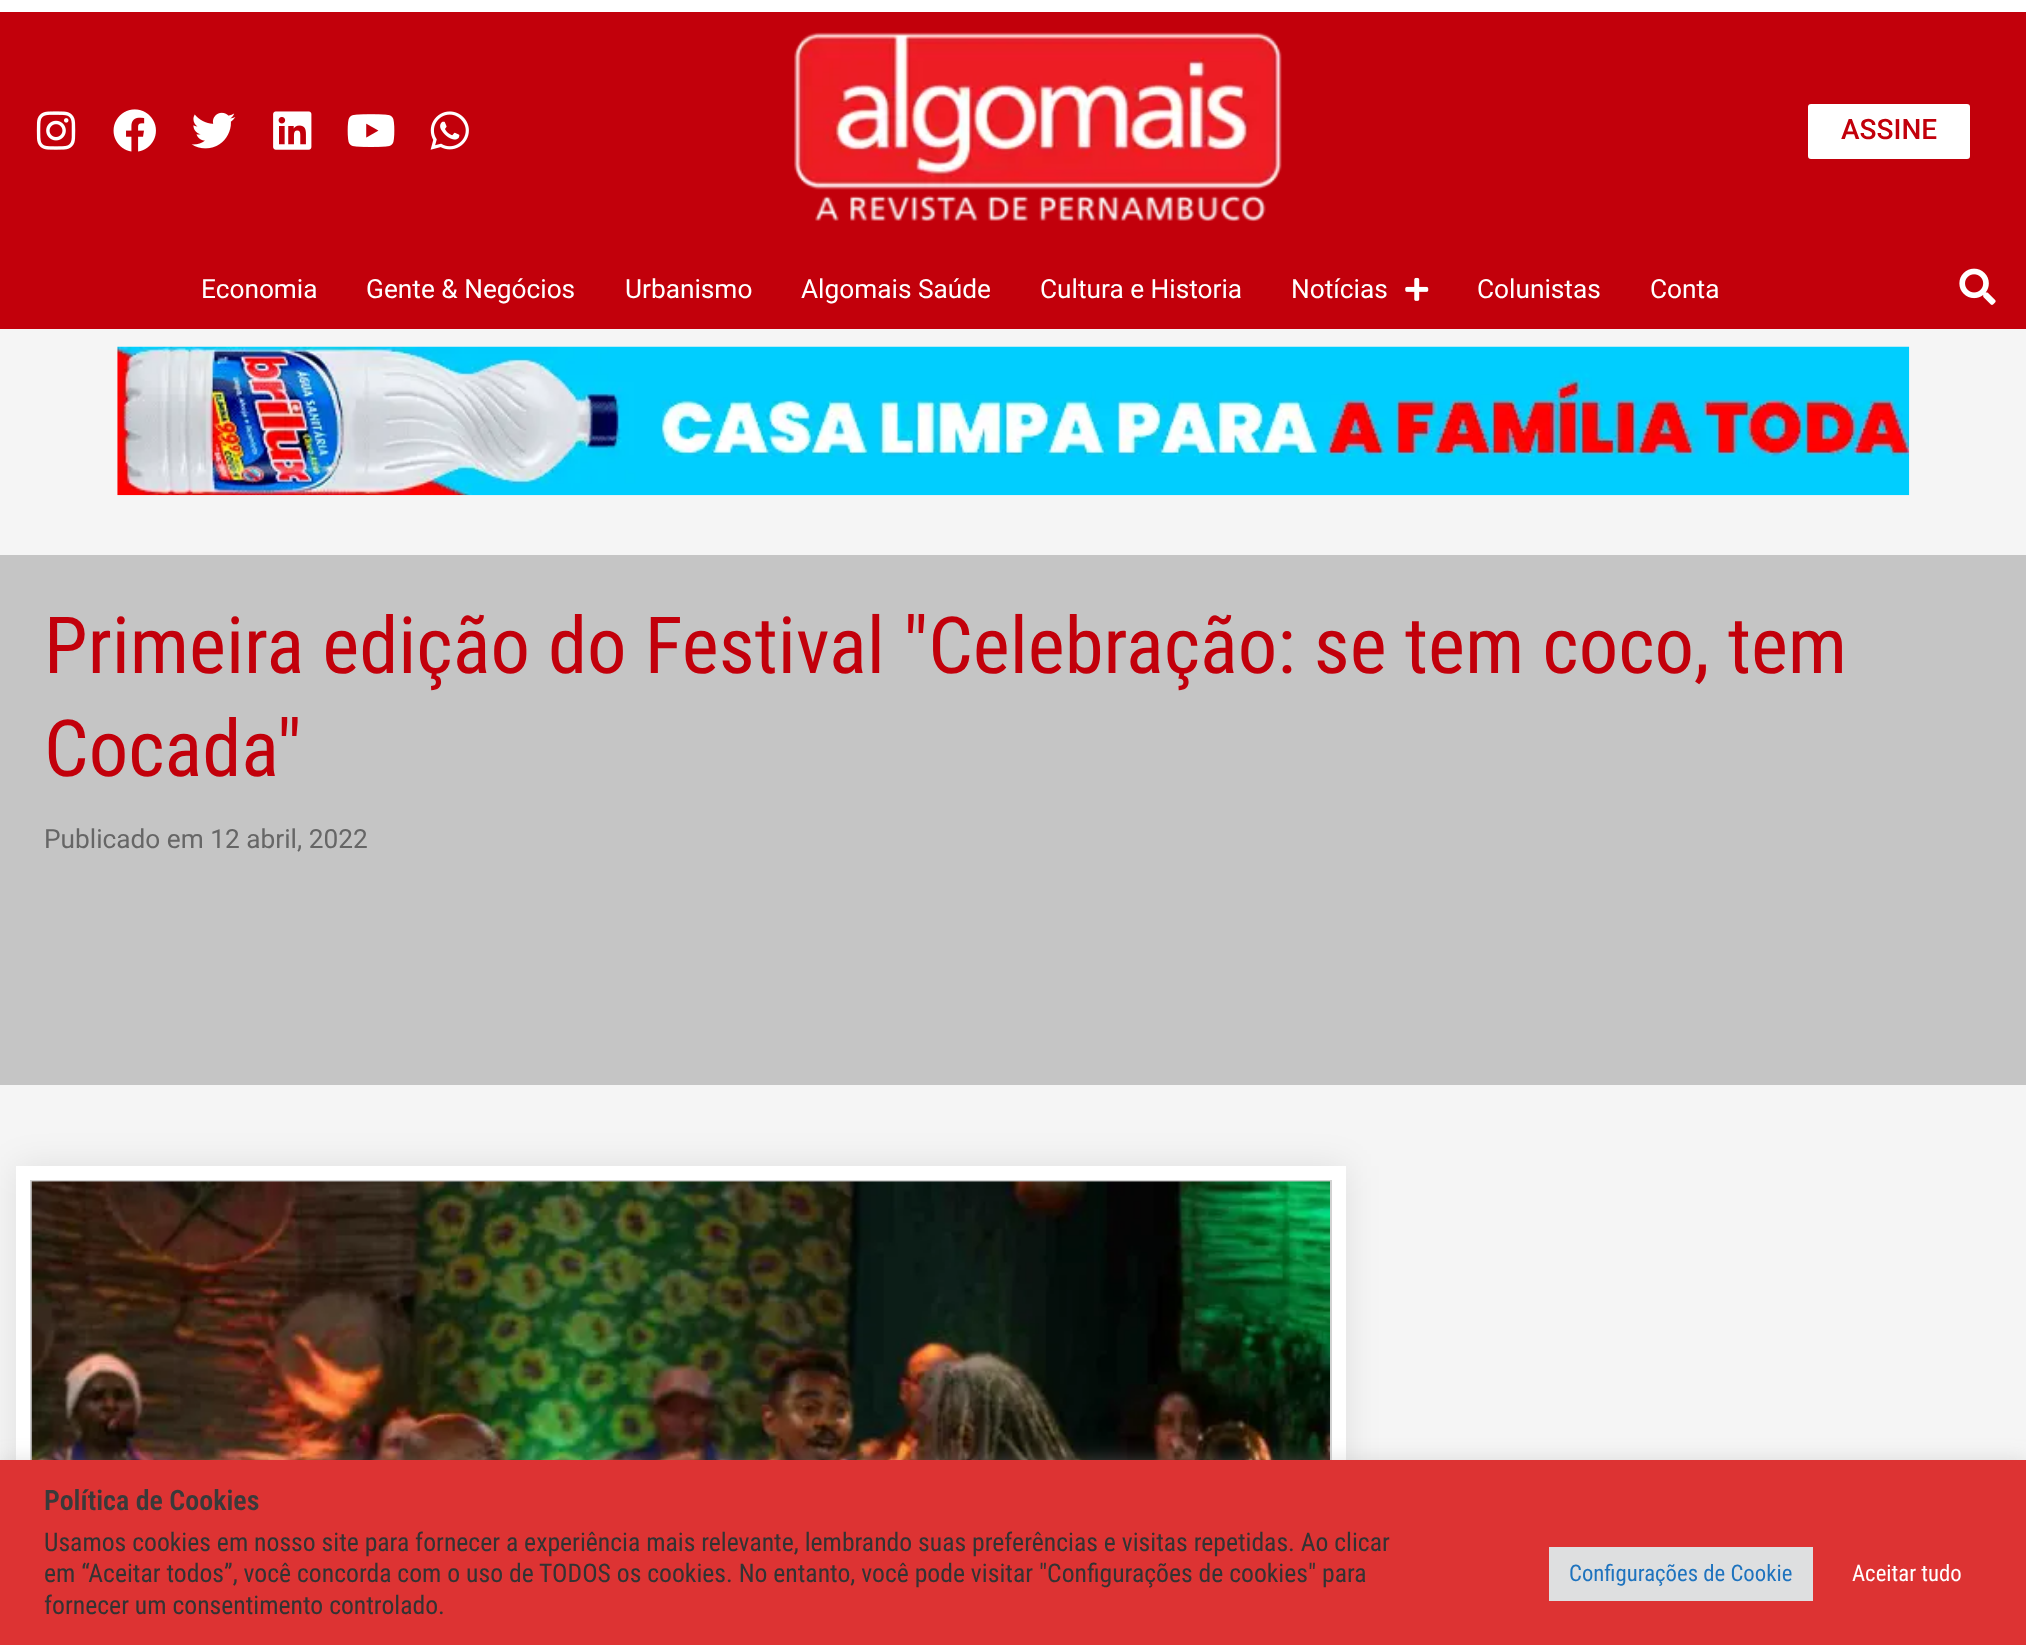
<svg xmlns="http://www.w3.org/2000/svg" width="2026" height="1645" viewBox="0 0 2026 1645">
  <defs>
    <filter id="blur1" x="-50%" y="-200%" width="200%" height="500%"><feGaussianBlur stdDeviation="17.5"/></filter>
    <filter id="blur2" x="-50%" y="-200%" width="200%" height="500%"><feGaussianBlur stdDeviation="9"/></filter>
  </defs>
  <rect width="100%" height="100%" fill="#f5f5f5"/>
  <rect x="0" y="0" width="2026" height="12" fill="#ffffff"/>
  <rect x="0" y="12" width="2026" height="317" fill="#c2000b"/>
  <image x="36" y="111" width="40" height="39" href="img1.png"/>
  <image x="113" y="109" width="43" height="43" href="img2.png"/>
  <image x="191" y="112" width="45" height="37" href="img3.png"/>
  <image x="273" y="111" width="39" height="39" href="img4.png"/>
  <image x="347" y="114" width="48" height="33" href="img5.png"/>
  <image x="430" y="111" width="39" height="39" href="img6.png"/>
  <image x="794" y="32" width="488" height="190" href="img7.png"/>
  <rect x="1806" y="102" width="166" height="59" rx="5" fill="#ffffff" stroke="#c2000b" stroke-width="4"/>
  <text x="1841" y="139" font-family="Roboto" font-size="28" font-weight="500" fill="#c2000b">ASSINE</text>
  <text x="201" y="298" font-family="Roboto" font-size="26.25" fill="#ffffff">Economia</text>
  <text x="366" y="298" font-family="Roboto" font-size="26.25" fill="#ffffff">Gente &amp; Negócios</text>
  <text x="625" y="298" font-family="Roboto" font-size="26.25" fill="#ffffff">Urbanismo</text>
  <text x="801" y="298" font-family="Roboto" font-size="26.25" fill="#ffffff">Algomais Saúde</text>
  <text x="1040" y="298" font-family="Roboto" font-size="26.25" fill="#ffffff">Cultura e Historia</text>
  <text x="1291" y="298" font-family="Roboto" font-size="26.25" fill="#ffffff">Notícias</text>
  <image x="1405" y="277" width="24" height="24" href="img8.png"/>
  <text x="1477" y="298" font-family="Roboto" font-size="26.25" fill="#ffffff">Colunistas</text>
  <text x="1650" y="298" font-family="Roboto" font-size="26.25" fill="#ffffff">Conta</text>
  <image x="1959" y="268" width="37" height="37" href="img9.png"/>
  <image x="117" y="346" width="1793" height="150" href="img10.png"/>
  <rect x="0" y="555" width="2026" height="530" fill="#c5c5c5"/>
  <text x="44" y="673" font-family="Roboto Condensed" font-size="78.75" fill="#c2000b">Primeira edição do Festival "Celebração: se tem coco, tem</text>
  <text x="44" y="776" font-family="Roboto Condensed" font-size="78.75" fill="#c2000b">Cocada"</text>
  <text x="44" y="848" font-family="Roboto" font-size="26.25" fill="#666666">Publicado em 12 abril, 2022</text>
  <rect x="16" y="1166" width="1330" height="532" fill="#000000" fill-opacity="0.09" filter="url(#blur1)"/>
  <rect x="16" y="1166" width="1330" height="294" fill="#ffffff"/>
  <rect x="31" y="1181" width="1300" height="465" fill="none" stroke="#d1d1d1" stroke-width="2"/>
  <image x="31" y="1181" width="1299" height="279" href="img11.png"/>
  <rect x="0" y="1458" width="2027" height="185" fill="#acabab" fill-opacity="0.3" filter="url(#blur2)"/>
  <rect x="0" y="1460" width="2026" height="185" fill="#dd3333"/>
  <text x="44" y="1510" font-family="Roboto Condensed" font-size="28" font-weight="600" fill="#3a3a3a">Política de Cookies</text>
  <text x="44" y="1551" font-family="Roboto Condensed" font-size="25.67" fill="#333333">Usamos cookies em nosso site para fornecer a experiência mais relevante, lembrando suas preferências e visitas repetidas. Ao clicar</text>
  <text x="44" y="1582" font-family="Roboto Condensed" font-size="25.67" fill="#333333">em “Aceitar todos”, você concorda com o uso de TODOS os cookies. No entanto, você pode visitar "Configurações de cookies" para</text>
  <text x="44" y="1614" font-family="Roboto Condensed" font-size="25.67" fill="#333333">fornecer um consentimento controlado.</text>
  <rect x="1549" y="1547" width="264" height="54" fill="#dedfe0"/>
  <text x="1569" y="1581" font-family="Roboto Condensed" font-size="22.75" fill="#1e73be">Configurações de Cookie</text>
  <text x="1852" y="1581" font-family="Roboto Condensed" font-size="22.75" fill="#ffffff">Aceitar tudo</text>
</svg>
